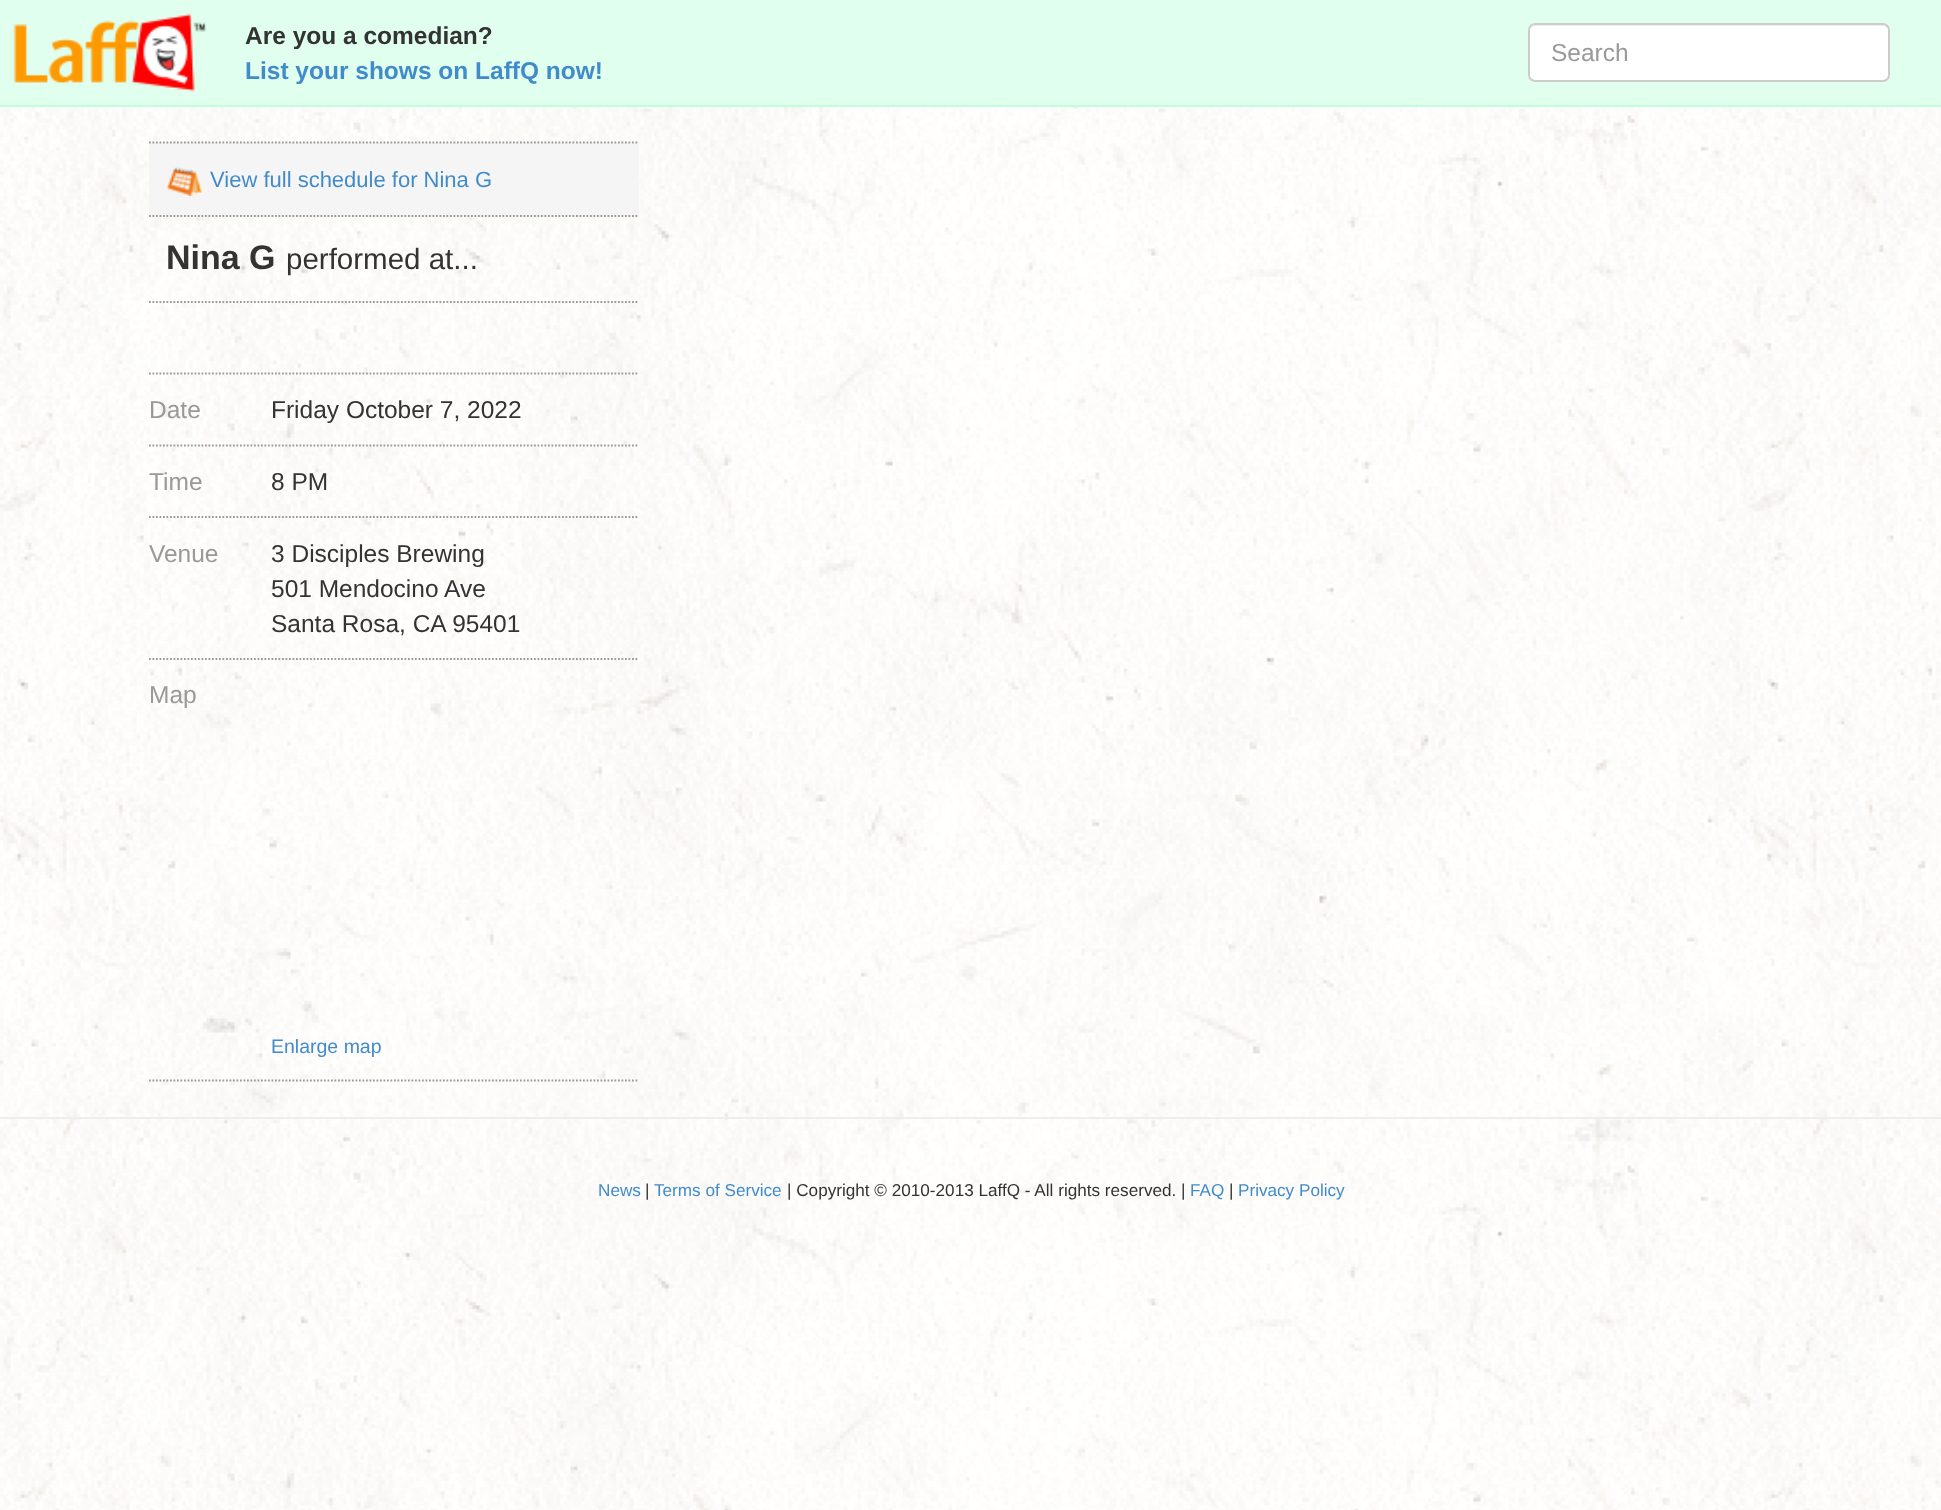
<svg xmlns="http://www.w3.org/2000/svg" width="1941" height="1510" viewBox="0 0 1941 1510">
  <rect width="100%" height="100%" fill="#ffffff"/>
  <image x="0" y="107" width="1941" height="1403" href="img1.png"/>
  <rect x="0" y="0" width="1941" height="105" fill="#e0ffee"/>
  <rect x="0" y="105" width="1941" height="2" fill="#bfffdc"/>
  <image x="13" y="13" width="194" height="79" href="img2.png"/>
  <text x="245" y="44" font-family="Liberation Sans" font-size="24.5" font-weight="bold" fill="#333333">Are you a comedian?</text>
  <text x="245" y="79" font-family="Liberation Sans" font-size="24.5" font-weight="bold" fill="#428bca">List your shows on LaffQ now!</text>
  <rect x="1528" y="23" width="362" height="59" rx="7" fill="#ffffff"/>
  <path d="M1535 26H1883C1886 26 1888 29 1888 32C1888 29 1887 25 1883 25H1535C1531 25 1530 29 1530 32C1530 29 1532 26 1535 26Z" fill="#ececec"/>
  <rect x="1529" y="24" width="360" height="57" rx="6" fill="none" stroke="#cccccc" stroke-width="2"/>
  <text x="1551" y="61" font-family="Liberation Sans" font-size="24.5" fill="#999999">Search</text>
  <rect x="149" y="142" width="490" height="75" fill="#f5f5f5"/>
  <path d="M149 142.5H639" fill="none" stroke="#999999" stroke-width="1.8" stroke-dasharray="1.75 1.75"/>
  <path d="M149 216H639" fill="none" stroke="#999999" stroke-width="1.8" stroke-dasharray="1.75 1.75"/>
  <image x="166" y="166" width="37" height="30" href="img3.png"/>
  <text x="210" y="187" font-family="Liberation Sans" font-size="22" fill="#428bca">View full schedule for Nina G</text>
  <path d="M149 302H639" fill="none" stroke="#999999" stroke-width="1.8" stroke-dasharray="1.75 1.75"/>
  <text x="166" y="269" font-family="Liberation Sans" font-size="34" font-weight="bold" fill="#333333">Nina G</text>
  <text x="286" y="269" font-family="Liberation Sans" font-size="29.5" fill="#333333">performed at...</text>
  <path d="M149 373.5H639" fill="none" stroke="#999999" stroke-width="1.8" stroke-dasharray="1.75 1.75"/>
  <path d="M149 445.5H254" fill="none" stroke="#999999" stroke-width="1.8" stroke-dasharray="1.75 1.75"/>
  <text x="149" y="418" font-family="Liberation Sans" font-size="24.5" fill="#999999">Date</text>
  <path d="M254 445.5H639" fill="none" stroke="#999999" stroke-width="1.8" stroke-dasharray="1.75 1.75"/>
  <text x="271" y="418" font-family="Liberation Sans" font-size="24.5" fill="#333333">Friday October 7, 2022</text>
  <path d="M149 517H254" fill="none" stroke="#999999" stroke-width="1.8" stroke-dasharray="1.75 1.75"/>
  <text x="149" y="490" font-family="Liberation Sans" font-size="24.5" fill="#999999">Time</text>
  <path d="M254 517H639" fill="none" stroke="#999999" stroke-width="1.8" stroke-dasharray="1.75 1.75"/>
  <text x="271" y="490" font-family="Liberation Sans" font-size="24.5" fill="#333333">8 PM</text>
  <path d="M149 659H254" fill="none" stroke="#999999" stroke-width="1.8" stroke-dasharray="1.75 1.75"/>
  <text x="149" y="562" font-family="Liberation Sans" font-size="24.5" fill="#999999">Venue</text>
  <path d="M254 659H639" fill="none" stroke="#999999" stroke-width="1.8" stroke-dasharray="1.75 1.75"/>
  <text x="271" y="562" font-family="Liberation Sans" font-size="24.5" fill="#333333">3 Disciples Brewing</text>
  <text x="271" y="597" font-family="Liberation Sans" font-size="24.5" fill="#333333">501 Mendocino Ave</text>
  <text x="271" y="632" font-family="Liberation Sans" font-size="24.5" fill="#333333">Santa Rosa, CA 95401</text>
  <path d="M149 1080.5H254" fill="none" stroke="#999999" stroke-width="1.8" stroke-dasharray="1.75 1.75"/>
  <text x="149" y="703" font-family="Liberation Sans" font-size="24.5" fill="#999999">Map</text>
  <path d="M254 1080.5H639" fill="none" stroke="#999999" stroke-width="1.8" stroke-dasharray="1.75 1.75"/>
  <text x="271" y="1053" font-family="Liberation Sans" font-size="19.5" fill="#428bca">Enlarge map</text>
  <rect x="0" y="1117" width="1941" height="2" fill="#eeeeee"/>
  <text x="598" y="1196" font-family="Liberation Sans" font-size="17.15" fill="#428bca">News</text>
  <text x="645" y="1196" font-family="Liberation Sans" font-size="17.15" fill="#333333">|</text>
  <text x="654" y="1196" font-family="Liberation Sans" font-size="17.15" fill="#428bca">Terms of Service</text>
  <text x="787" y="1196" font-family="Liberation Sans" font-size="17.15" fill="#333333">| Copyright © 2010-2013 LaffQ - All rights reserved. |</text>
  <text x="1190" y="1196" font-family="Liberation Sans" font-size="17.15" fill="#428bca">FAQ</text>
  <text x="1229" y="1196" font-family="Liberation Sans" font-size="17.15" fill="#333333">|</text>
  <text x="1238" y="1196" font-family="Liberation Sans" font-size="17.15" fill="#428bca">Privacy Policy</text>
</svg>
